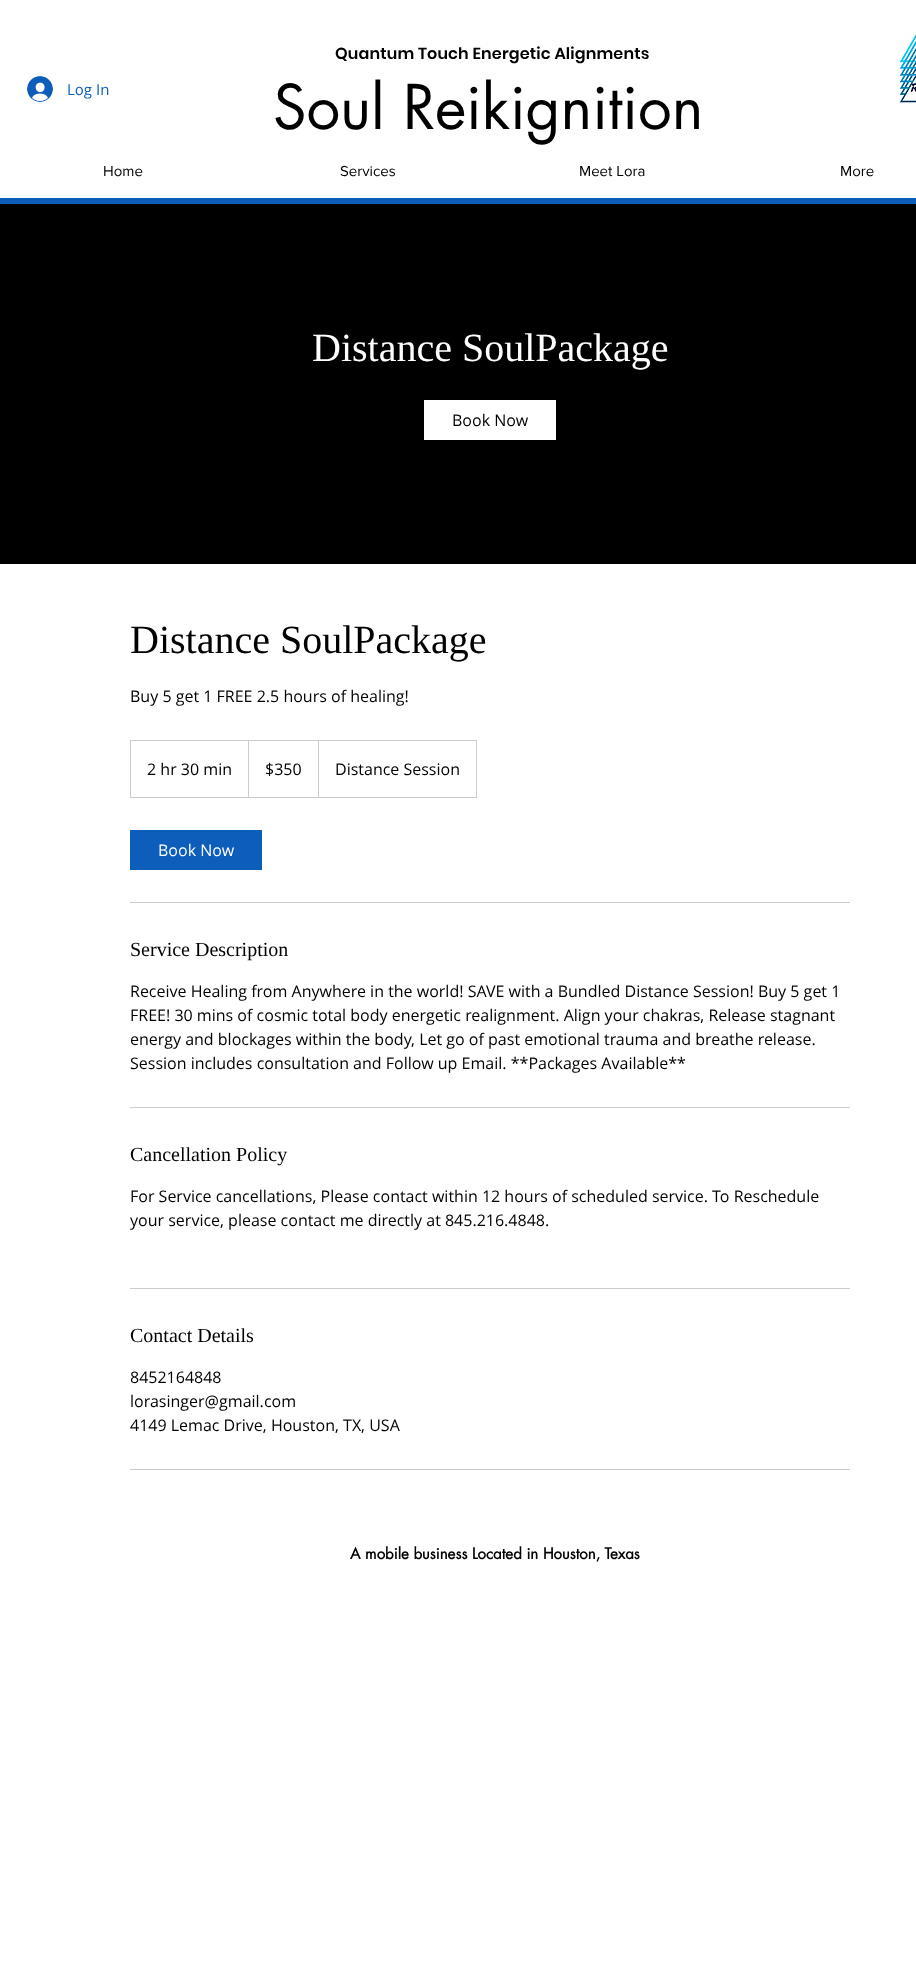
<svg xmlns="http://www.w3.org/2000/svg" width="916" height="1963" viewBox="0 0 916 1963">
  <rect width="100%" height="100%" fill="#ffffff"/>
  <image x="27" y="76" width="26" height="26" href="img1.png"/>
  <text x="67" y="95" font-family="Open Sans" font-size="15" fill="#0d5eba">Log In</text>
  <text x="335" y="59" font-family="Poppins" font-size="16" font-weight="600" letter-spacing="0.15" fill="#000000">Quantum Touch Energetic Alignments</text>
  <text x="273" y="129" font-family="futura" font-size="60" fill="#000000">Soul Reikignition</text>
  <image x="899" y="34" width="17" height="69" href="img2.png"/>
  <text x="103" y="176" font-family="'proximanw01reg'" font-size="15" fill="#000000">Home</text>
  <text x="340" y="176" font-family="'proximanw01reg'" font-size="15" fill="#000000">Services</text>
  <text x="579" y="176" font-family="'proximanw01reg'" font-size="15" fill="#000000">Meet Lora</text>
  <text x="840" y="176" font-family="'proximanw01reg'" font-size="15" fill="#000000">More</text>
  <rect x="0" y="198" width="916" height="6" fill="#0d5eba"/>
  <rect x="0" y="204" width="916" height="360" fill="#000000"/>
  <text x="312" y="361" font-family="Liberation Serif" font-size="40" fill="#ffffff">Distance SoulPackage</text>
  <rect x="424" y="400" width="132" height="40" fill="#ffffff"/>
  <text x="452" y="426" font-family="Open Sans" font-size="16" fill="#000000">Book Now</text>
  <text x="130" y="653" font-family="Liberation Serif" font-size="40" fill="#000000">Distance SoulPackage</text>
  <text x="130" y="702" font-family="Open Sans" font-size="16" fill="#000000">Buy 5 get 1 FREE 2.5 hours of healing!</text>
  <rect x="130.5" y="740.5" width="346" height="57" fill="none" stroke="#cccccc"/>
  <text x="147" y="775" font-family="Open Sans" font-size="16" fill="#000000">2 hr 30 min</text>
  <path d="M248 797V740L249 741V797Z" fill="#cccccc"/>
  <text x="265" y="775" font-family="Open Sans" font-size="16" fill="#000000">$350</text>
  <path d="M318 797V740L319 741V797Z" fill="#cccccc"/>
  <text x="335" y="775" font-family="Open Sans" font-size="16" fill="#000000">Distance Session</text>
  <rect x="130" y="830" width="132" height="40" fill="#0d5eba"/>
  <text x="158" y="856" font-family="Open Sans" font-size="16" fill="#ffffff">Book Now</text>
  <rect x="130" y="902" width="720" height="1" fill="#cccccc"/>
  <text x="130" y="956" font-family="Liberation Serif" font-size="20" fill="#000000">Service Description</text>
  <text x="130" y="997" font-family="Open Sans" font-size="16" fill="#000000">Receive Healing from Anywhere in the world! SAVE with a Bundled Distance Session! Buy 5 get 1</text>
  <text x="130" y="1021" font-family="Open Sans" font-size="16" fill="#000000">FREE! 30 mins of cosmic total body energetic realignment. Align your chakras, Release stagnant</text>
  <text x="130" y="1045" font-family="Open Sans" font-size="16" fill="#000000">energy and blockages within the body, Let go of past emotional trauma and breathe release.</text>
  <text x="130" y="1069" font-family="Open Sans" font-size="16" fill="#000000">Session includes consultation and Follow up Email. **Packages Available**</text>
  <rect x="130" y="1107" width="720" height="1" fill="#cccccc"/>
  <text x="130" y="1161" font-family="Liberation Serif" font-size="20" fill="#000000">Cancellation Policy</text>
  <text x="130" y="1202" font-family="Open Sans" font-size="16" fill="#000000">For Service cancellations, Please contact within 12 hours of scheduled service. To Reschedule</text>
  <text x="130" y="1226" font-family="Open Sans" font-size="16" fill="#000000">your service, please contact me directly at 845.216.4848.</text>
  <rect x="130" y="1288" width="720" height="1" fill="#cccccc"/>
  <text x="130" y="1342" font-family="Liberation Serif" font-size="20" fill="#000000">Contact Details</text>
  <text x="130" y="1383" font-family="Open Sans" font-size="16" fill="#000000">8452164848</text>
  <text x="130" y="1407" font-family="Open Sans" font-size="16" fill="#000000">lorasinger@gmail.com</text>
  <text x="130" y="1431" font-family="Open Sans" font-size="16" fill="#000000">4149 Lemac Drive, Houston, TX, USA</text>
  <rect x="130" y="1469" width="720" height="1" fill="#cccccc"/>
  <text x="350" y="1559" font-family="futura" font-size="15" font-weight="bold" fill="#000000">A mobile business Located in Houston, Texas</text>
</svg>
